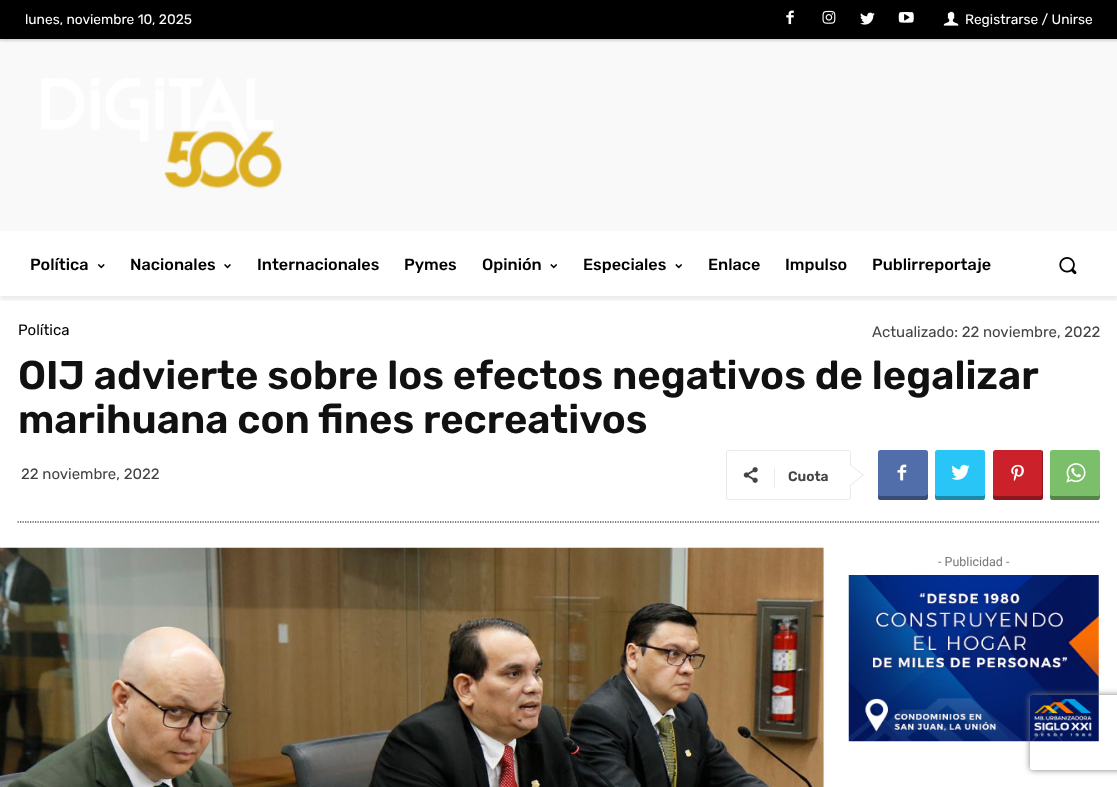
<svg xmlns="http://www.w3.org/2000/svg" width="1117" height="787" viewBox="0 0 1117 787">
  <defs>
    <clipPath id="clip1"><path d="M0 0H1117V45H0ZM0 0H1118V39H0Z" clip-rule="evenodd"/></clipPath>
    <filter id="blur1" x="-50%" y="-200%" width="200%" height="500%"><feGaussianBlur stdDeviation="1"/></filter>
    <clipPath id="clip2"><rect x="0" y="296" width="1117" height="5"/></clipPath>
    <filter id="blur2" x="-50%" y="-200%" width="200%" height="500%"><feGaussianBlur stdDeviation="2"/></filter>
    <clipPath id="clip3"><rect x="878" y="450" width="50" height="50"/></clipPath>
    <clipPath id="clip4"><rect x="935" y="450" width="50" height="50"/></clipPath>
    <clipPath id="clip5"><rect x="1050" y="450" width="50" height="50"/></clipPath>
    <clipPath id="clip6"><path d="M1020 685H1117V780H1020ZM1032.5 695H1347.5C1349 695 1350 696 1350 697.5V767.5C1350 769 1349 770 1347.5 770H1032.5C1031 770 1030 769 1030 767.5V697.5C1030 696 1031 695 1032.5 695Z" clip-rule="evenodd"/></clipPath>
    <filter id="blur3" x="-50%" y="-200%" width="200%" height="500%"><feGaussianBlur stdDeviation="3"/></filter>
  </defs>
  <rect width="100%" height="100%" fill="#ffffff"/>
  <rect x="0" y="0" width="1117" height="39" fill="#000000"/>
  <image x="786" y="10" width="8" height="15" href="img1.png"/>
  <image x="822" y="10" width="14" height="14" href="img2.png"/>
  <image x="860" y="12" width="15" height="13" href="img3.png"/>
  <image x="898" y="12" width="16" height="11" href="img4.png"/>
  <image x="943" y="11" width="16" height="15" href="img5.png"/>
  <rect x="0" y="39" width="1117" height="192" fill="#f9f9f9"/>
  <g clip-path="url(#clip1)">
    <rect x="0" y="3" width="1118" height="38" fill="#0a0000" fill-opacity="0.15" filter="url(#blur1)"/>
  </g>
  <text x="25" y="24" font-family="Rubik" font-size="13.75" fill="#ffffff">lunes, noviembre 10, 2025</text>
  <text x="965" y="24" font-family="Rubik" font-size="13.75" fill="#ffffff">Registrarse / Unirse</text>
  <image x="41" y="78" width="242" height="111" href="img6.png"/>
  <g clip-path="url(#clip2)">
    <rect x="0" y="235" width="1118" height="65" fill="#000000" fill-opacity="0.08" filter="url(#blur2)"/>
  </g>
  <text x="30" y="270" font-family="Rubik" font-size="16.25" font-weight="500" fill="#000000">Política</text>
  <image x="98" y="264" width="7" height="5" href="img7.png"/>
  <text x="130" y="270" font-family="Rubik" font-size="16.25" font-weight="500" fill="#000000">Nacionales</text>
  <image x="224" y="264" width="7" height="5" href="img8.png"/>
  <text x="257" y="270" font-family="Rubik" font-size="16.25" font-weight="500" fill="#000000">Internacionales</text>
  <text x="404" y="270" font-family="Rubik" font-size="16.25" font-weight="500" fill="#000000">Pymes</text>
  <text x="482" y="270" font-family="Rubik" font-size="16.25" font-weight="500" fill="#000000">Opinión</text>
  <image x="550" y="264" width="7" height="5" href="img9.png"/>
  <text x="583" y="270" font-family="Rubik" font-size="16.25" font-weight="500" fill="#000000">Especiales</text>
  <image x="675" y="264" width="7" height="5" href="img9.png"/>
  <text x="708" y="270" font-family="Rubik" font-size="16.25" font-weight="500" fill="#000000">Enlace</text>
  <text x="785" y="270" font-family="Rubik" font-size="16.25" font-weight="500" fill="#000000">Impulso</text>
  <text x="872" y="270" font-family="Rubik" font-size="16.25" font-weight="500" fill="#000000">Publirreportaje</text>
  <image x="1059" y="257" width="18" height="18" href="img10.png"/>
  <text x="18" y="335" font-family="Rubik" font-size="15" fill="#000000">Política</text>
  <text x="872" y="337" font-family="Rubik" font-size="15" fill="#444444">Actualizado: 22 noviembre, 2022</text>
  <text x="18" y="389" font-family="Rubik" font-size="40" font-weight="600" fill="#111111">OIJ advierte sobre los efectos negativos de legalizar</text>
  <text x="18" y="433" font-family="Rubik" font-size="40" font-weight="600" fill="#111111">marihuana con fines recreativos</text>
  <text x="21" y="479" font-family="Rubik" font-size="15" fill="#444444">22 noviembre, 2022</text>
  <rect x="726.5" y="450.5" width="124" height="49" rx="2" fill="none" stroke="#e9e9e9"/>
  <path d="M850 486V464L864 475Z" fill="#e9e9e9"/>
  <image x="743" y="467" width="15" height="16" href="img11.png"/>
  <rect x="774" y="468" width="1" height="20" fill="#ebebeb"/>
  <text x="788" y="481" font-family="Rubik" font-size="13.75" font-weight="600" fill="#444444">Cuota</text>
  <path d="M850 485V465L862.5 475Z" fill="#ffffff"/>
  <rect x="878" y="450" width="50" height="50" rx="2.5" fill="#516eab"/>
  <g clip-path="url(#clip3)">
    <path d="M878 494C878 502 879 500 888 500H918C927 500 928 502 928 494L927 495L925 496H880C879 496 878 495 878 494Z" fill="#000000" fill-opacity="0.31"/>
  </g>
  <image x="897" y="464" width="10" height="17" href="img12.png"/>
  <rect x="935" y="450" width="50" height="50" rx="2.5" fill="#29c5f6"/>
  <g clip-path="url(#clip4)">
    <path d="M935 494C935 502 936 500 945 500H975C984 500 985 502 985 494L984 496C982 496 938 496 936 496Z" fill="#000000" fill-opacity="0.31"/>
  </g>
  <image x="951" y="464" width="19" height="16" href="img13.png"/>
  <rect x="993" y="450" width="50" height="50" rx="2.5" fill="#ca212a"/>
  <path d="M993 495V498C993 499 994 500 996 500H1040C1042 500 1043 499 1043 498V452C1043 452 1043 451 1042 450V494C1042 495 1041 496 1040 496H995Z" fill="#000000" fill-opacity="0.31"/>
  <image x="1011" y="464" width="13" height="17" href="img14.png"/>
  <rect x="1050" y="450" width="50" height="50" rx="2.5" fill="#7bbf6a"/>
  <g clip-path="url(#clip5)">
    <path d="M1050 494C1050 502 1051 500 1060 500H1090C1099 500 1100 502 1100 494L1099 496H1052C1051 496 1050 495 1050 494Z" fill="#000000" fill-opacity="0.31"/>
  </g>
  <image x="1066" y="463" width="20" height="20" href="img15.png"/>
  <path d="M17.5 522H1100" fill="none" stroke="#000000" stroke-width="1.2" stroke-dasharray="1.25 1.25"/>
  <image x="0" y="547" width="824" height="240" href="img16.png"/>
  <text x="938" y="566" font-family="Roboto" font-size="12.5" fill="#767676">- Publicidad -</text>
  <image x="848" y="575" width="251" height="167" href="img17.png"/>
  <g clip-path="url(#clip6)">
    <rect x="1030" y="695" width="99" height="75" rx="2.5" fill="#808080" filter="url(#blur3)"/>
  </g>
</svg>
